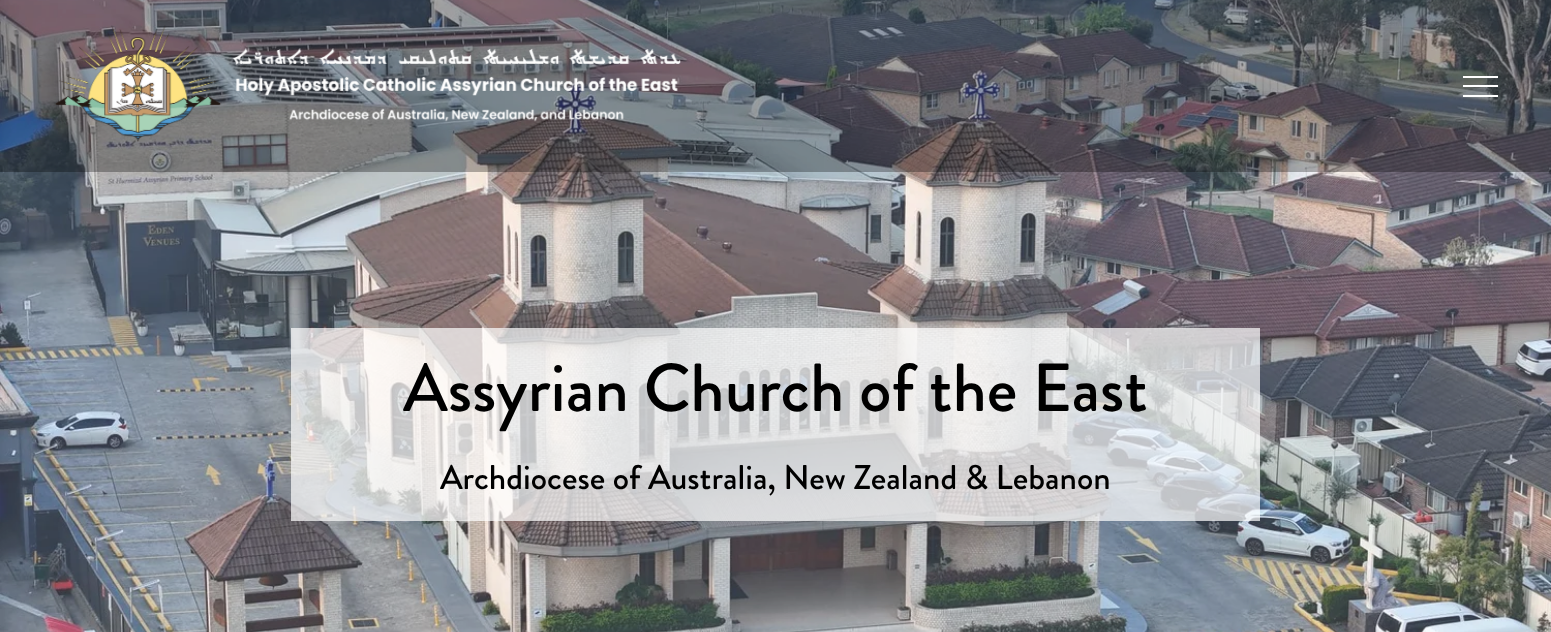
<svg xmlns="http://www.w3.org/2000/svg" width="1551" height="632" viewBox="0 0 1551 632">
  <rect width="100%" height="100%" fill="#ffffff"/>
  <image x="0" y="0" width="1551" height="632" href="img2.png"/>
  <rect x="0" y="0" width="1551" height="172" fill="#000000" fill-opacity="0.3"/>
  <image x="55" y="25" width="626" height="117" href="img1.png"/>
  <rect x="1463" y="76" width="35" height="2" fill="#ffffff"/>
  <rect x="1463" y="85" width="35" height="2" fill="#ffffff"/>
  <rect x="1463" y="95" width="35" height="2" fill="#ffffff"/>
  <rect x="291" y="328" width="969" height="193" fill="#ffffff" fill-opacity="0.7"/>
  <text x="403" y="411" font-family="Brandon Grotesque" font-size="67.75" font-weight="500" fill="#000000">Assyrian Church of the East</text>
  <text x="440" y="489" font-family="Brandon Grotesque" font-size="34.3" font-weight="500" fill="#000000">Archdiocese of Australia, New Zealand &amp; Lebanon</text>
</svg>
